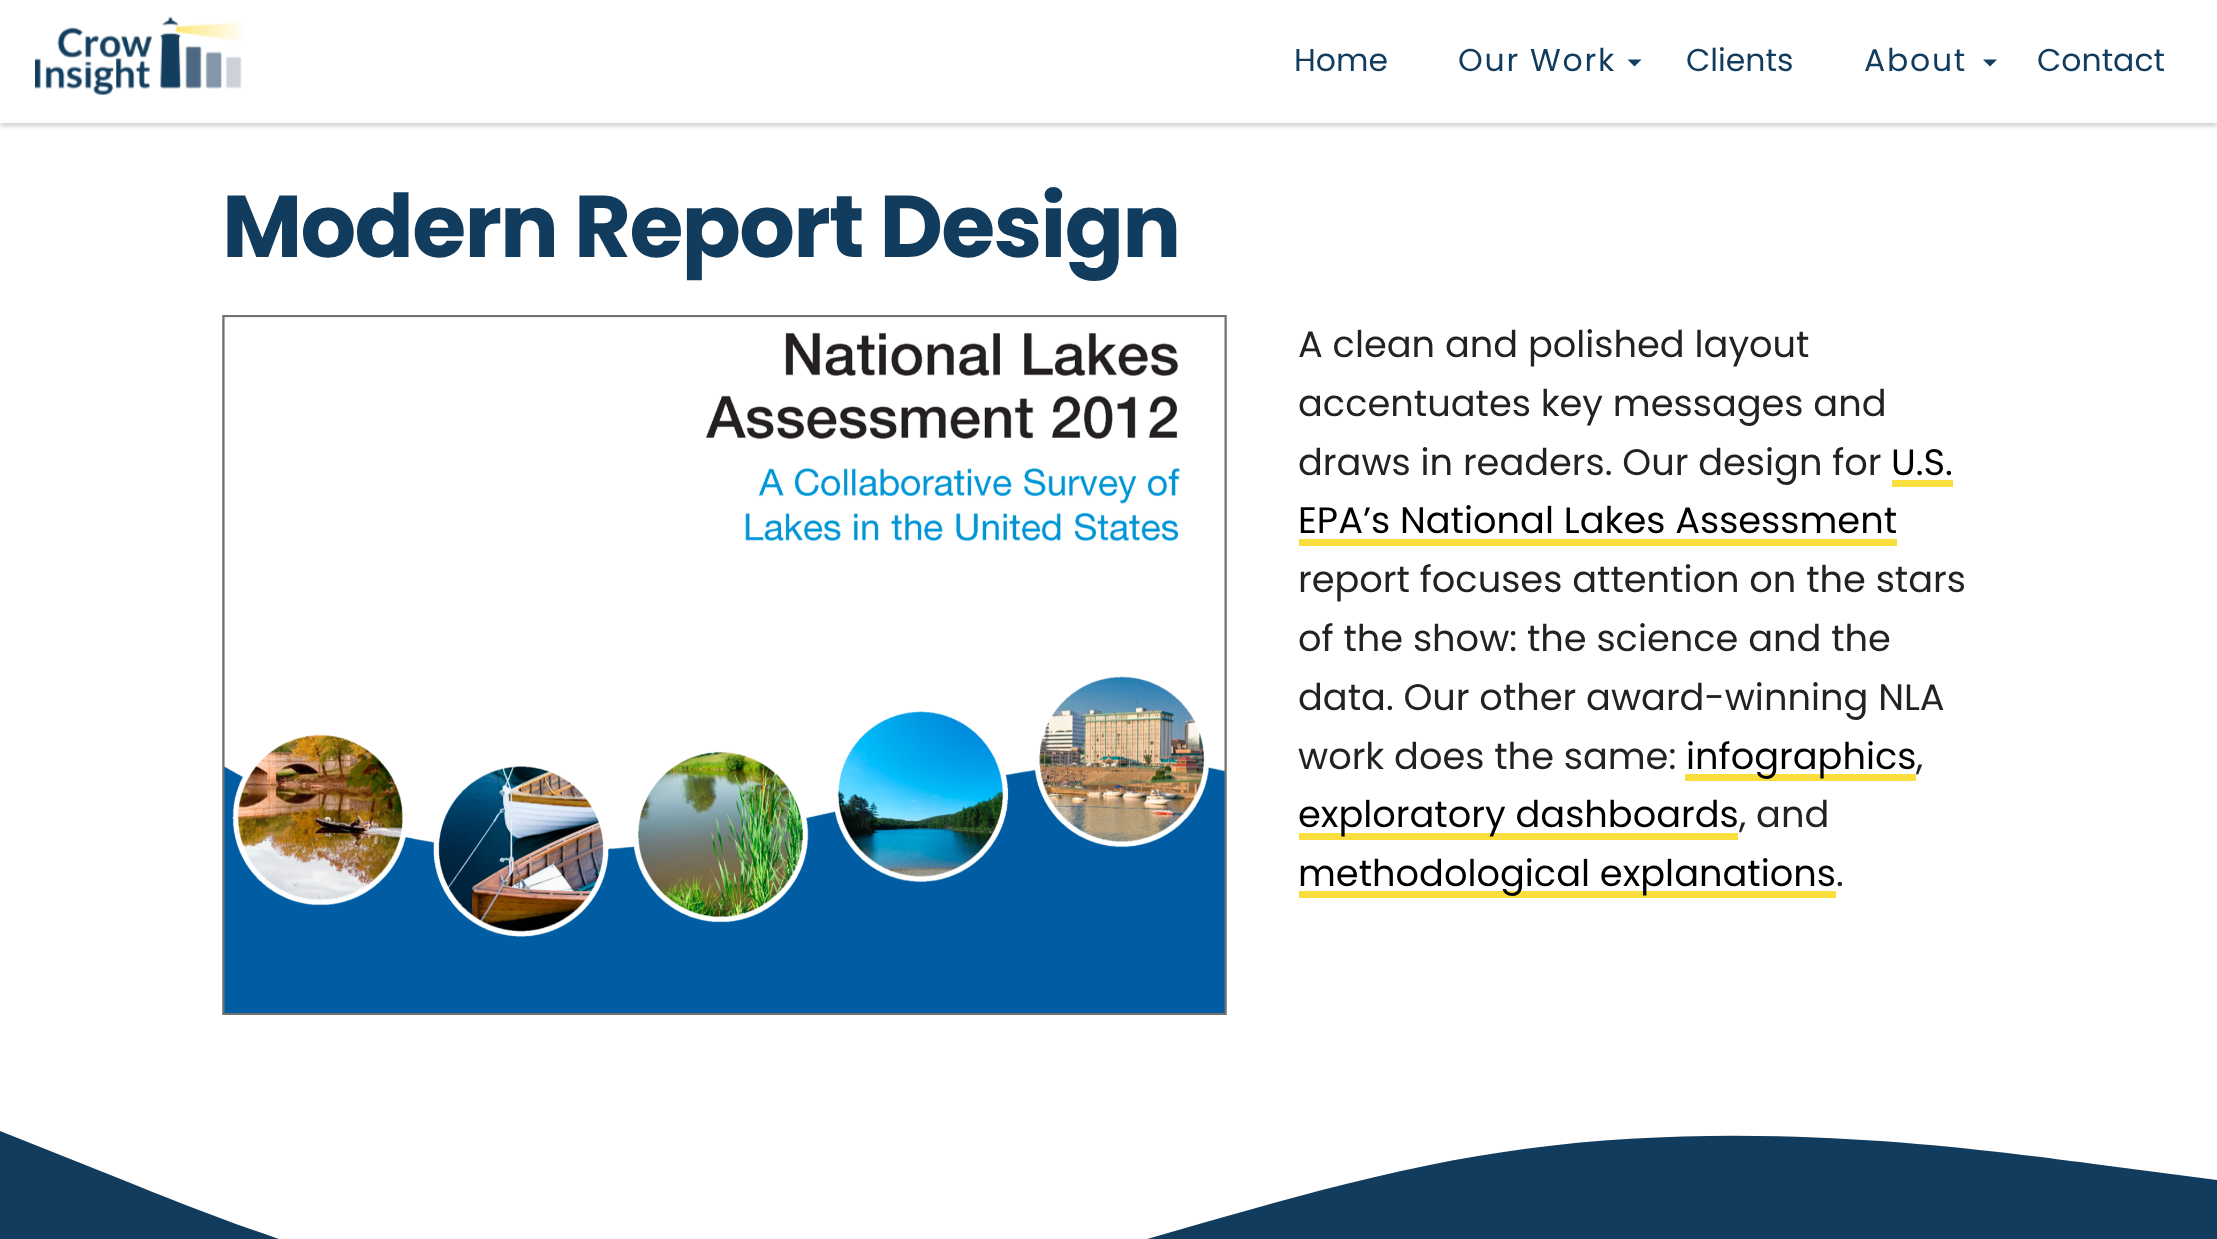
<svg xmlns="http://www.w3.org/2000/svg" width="2217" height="1239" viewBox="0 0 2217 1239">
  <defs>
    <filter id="blur1" x="-50%" y="-200%" width="200%" height="500%"><feGaussianBlur stdDeviation="2.5"/></filter>
  </defs>
  <rect width="100%" height="100%" fill="#ffffff"/>
  <rect x="0" y="4" width="2217" height="122" fill="#cdcdcd" filter="url(#blur1)"/>
  <rect x="0" y="0" width="2217" height="123" fill="#ffffff"/>
  <image x="35" y="16" width="209" height="79" href="img1.png"/>
  <text x="1294" y="71" font-family="Poppins" font-size="31.5" fill="#123c5d">Home</text>
  <text x="1458" y="71" font-family="Poppins" font-size="31.5" letter-spacing="1.75" fill="#123c5d">Our Work</text>
  <path d="M1627.5 59.5H1641.5L1634.5 66.5Z" fill="#143e5f"/>
  <text x="1686" y="71" font-family="Poppins" font-size="31.5" fill="#123c5d">Clients</text>
  <text x="1864" y="71" font-family="Poppins" font-size="31.5" letter-spacing="1.75" fill="#123c5d">About</text>
  <path d="M1983 59.5H1997L1990 66.5Z" fill="#143e5f"/>
  <text x="2037" y="71" font-family="Poppins" font-size="31.5" fill="#123c5d">Contact</text>
  <text x="222" y="257" font-family="Poppins" font-size="87.5" font-weight="bold" letter-spacing="-1.75" fill="#123c5d">Modern Report Design</text>
  <image x="222" y="315" width="1005" height="700" href="img2.png"/>
  <text x="1298" y="357" font-family="Poppins" font-size="36.75" fill="#222222">A clean and polished layout</text>
  <text x="1298" y="416" font-family="Poppins" font-size="36.75" fill="#222222">accentuates key messages and</text>
  <text x="1298" y="475" font-family="Poppins" font-size="36.75" fill="#222222">draws in readers. Our design for</text>
  <text x="1891" y="475" font-family="Poppins" font-size="36.75" fill="#000000">U.S.</text>
  <rect x="1892" y="480" width="61" height="7" fill="#f9de3e"/>
  <text x="1298" y="533" font-family="Poppins" font-size="36.75" fill="#000000">EPA’s National Lakes Assessment</text>
  <rect x="1299" y="539" width="598" height="7" fill="#f9de3e"/>
  <text x="1298" y="592" font-family="Poppins" font-size="36.75" fill="#222222">report focuses attention on the stars</text>
  <text x="1298" y="651" font-family="Poppins" font-size="36.75" fill="#222222">of the show: the science and the</text>
  <text x="1298" y="710" font-family="Poppins" font-size="36.75" fill="#222222">data. Our other award-winning NLA</text>
  <text x="1298" y="769" font-family="Poppins" font-size="36.75" fill="#222222">work does the same:</text>
  <rect x="1685" y="774" width="231" height="7" fill="#f9de3e"/>
  <text x="1686" y="769" font-family="Poppins" font-size="36.75" fill="#000000">infographics</text>
  <text x="1916" y="769" font-family="Poppins" font-size="36.75" fill="#222222">,</text>
  <rect x="1299" y="833" width="439" height="7" fill="#f9de3e"/>
  <text x="1298" y="827" font-family="Poppins" font-size="36.75" fill="#000000">exploratory dashboards</text>
  <text x="1739" y="827" font-family="Poppins" font-size="36.75" fill="#222222">, and</text>
  <rect x="1299" y="891" width="537" height="7" fill="#f9de3e"/>
  <text x="1298" y="886" font-family="Poppins" font-size="36.75" fill="#000000">methodological explanations</text>
  <text x="1836" y="886" font-family="Poppins" font-size="36.75" fill="#222222">.</text>
  <path d="M0 1131L123 1180C246 1230 493 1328 739 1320C985 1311 1232 1197 1478 1156C1724 1114 1971 1148 2094 1164L2217 1180V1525H0Z" fill="#123c5d"/>
</svg>
